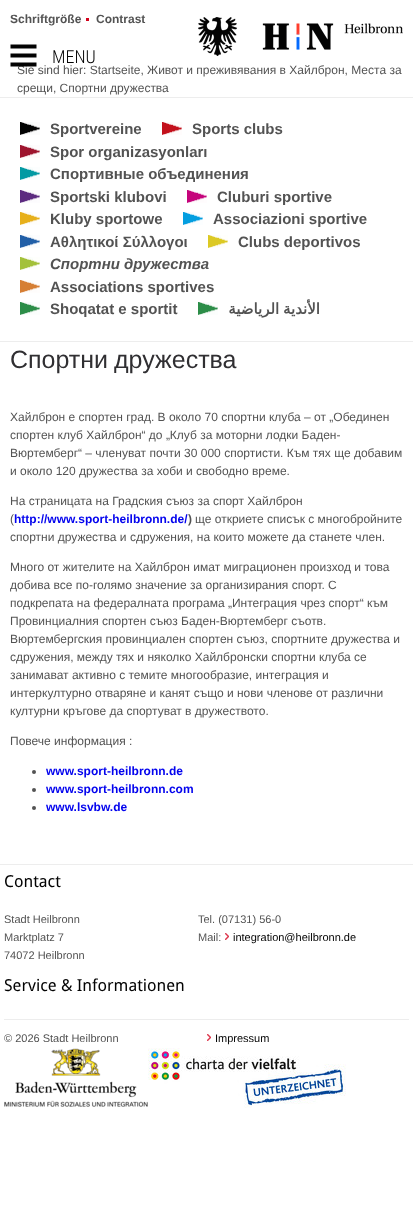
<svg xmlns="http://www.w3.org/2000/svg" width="413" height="1230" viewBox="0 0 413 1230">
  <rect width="100%" height="100%" fill="#ffffff"/>
  <text x="10" y="23" font-family="Liberation Sans" font-size="12" font-weight="bold" fill="#535353">Schriftgröße</text>
  <rect x="86" y="18" width="3" height="3" fill="#d3031d"/>
  <text x="96" y="23" font-family="Liberation Sans" font-size="12" font-weight="bold" fill="#535353">Contrast</text>
  <image x="198" y="17" width="205" height="39" href="img1.png"/>
  <text x="17" y="74" font-family="Liberation Sans" font-size="12" fill="#535353">Sie sind hier: Startseite, Живот и преживявания в Хайлброн, Места за</text>
  <image x="10" y="44" width="27" height="23" href="img2.png"/>
  <text x="52" y="63" font-family="Roboto Condensed" font-size="18" font-weight="300" fill="#030303">MENU</text>
  <rect x="0" y="97" width="413" height="1" fill="#ededed"/>
  <text x="17" y="92" font-family="Liberation Sans" font-size="12" fill="#535353">срещи, Спортни дружества</text>
  <rect x="0" y="341" width="413" height="1" fill="#ededed"/>
  <rect x="20" y="122" width="20" height="13" fill="#030303"/>
  <image x="20" y="122" width="20" height="13" href="img3.png"/>
  <text x="50" y="134" font-family="Liberation Sans" font-size="15" font-weight="bold" fill="#535353">Sportvereine</text>
  <rect x="162" y="122" width="20" height="13" fill="#c3111c"/>
  <image x="162" y="122" width="20" height="13" href="img4.png"/>
  <text x="192" y="134" font-family="Liberation Sans" font-size="15" font-weight="bold" fill="#535353">Sports clubs</text>
  <rect x="20" y="145" width="20" height="13" fill="#9e152e"/>
  <image x="20" y="145" width="20" height="13" href="img5.png"/>
  <text x="50" y="157" font-family="Liberation Sans" font-size="15" font-weight="bold" fill="#535353">Spor organizasyonları</text>
  <rect x="20" y="167" width="20" height="13" fill="#039aa3"/>
  <image x="20" y="167" width="20" height="13" href="img6.png"/>
  <text x="50" y="179" font-family="Liberation Sans" font-size="15" font-weight="bold" fill="#535353">Спортивные объединения</text>
  <rect x="20" y="190" width="20" height="13" fill="#5c2a80"/>
  <image x="20" y="190" width="20" height="13" href="img7.png"/>
  <text x="50" y="202" font-family="Liberation Sans" font-size="15" font-weight="bold" fill="#535353">Sportski klubovi</text>
  <rect x="187" y="190" width="20" height="13" fill="#c5037b"/>
  <image x="187" y="190" width="20" height="13" href="img8.png"/>
  <text x="217" y="202" font-family="Liberation Sans" font-size="15" font-weight="bold" fill="#535353">Cluburi sportive</text>
  <rect x="20" y="212" width="20" height="13" fill="#e7b01b"/>
  <image x="20" y="212" width="20" height="13" href="img9.png"/>
  <text x="50" y="224" font-family="Liberation Sans" font-size="15" font-weight="bold" fill="#535353">Kluby sportowe</text>
  <rect x="183" y="212" width="20" height="13" fill="#039ee0"/>
  <image x="183" y="212" width="20" height="13" href="img10.png"/>
  <text x="213" y="224" font-family="Liberation Sans" font-size="15" font-weight="bold" fill="#535353">Associazioni sportive</text>
  <rect x="20" y="235" width="20" height="13" fill="#215fa7"/>
  <image x="20" y="235" width="20" height="13" href="img11.png"/>
  <text x="50" y="247" font-family="Liberation Sans" font-size="15" font-weight="bold" fill="#535353">Αθλητικοί Σύλλογοι</text>
  <rect x="208" y="235" width="20" height="13" fill="#dcc924"/>
  <image x="208" y="235" width="20" height="13" href="img12.png"/>
  <text x="238" y="247" font-family="Liberation Sans" font-size="15" font-weight="bold" fill="#535353">Clubs deportivos</text>
  <rect x="20" y="257" width="20" height="13" fill="#a3c139"/>
  <image x="20" y="257" width="20" height="13" href="img13.png"/>
  <text x="50" y="269" font-family="Liberation Sans" font-size="15" font-weight="bold" font-style="italic" fill="#535353">Спортни дружества</text>
  <rect x="20" y="280" width="20" height="13" fill="#d67e33"/>
  <image x="20" y="280" width="20" height="13" href="img14.png"/>
  <text x="50" y="292" font-family="Liberation Sans" font-size="15" font-weight="bold" fill="#535353">Associations sportives</text>
  <rect x="20" y="302" width="20" height="13" fill="#2c8d48"/>
  <image x="20" y="302" width="20" height="13" href="img15.png"/>
  <text x="50" y="314" font-family="Liberation Sans" font-size="15" font-weight="bold" fill="#535353">Shoqatat e sportit</text>
  <rect x="198" y="302" width="20" height="13" fill="#2c8d48"/>
  <image x="198" y="302" width="20" height="13" href="img15.png"/>
  <text x="320" y="314" word-spacing="-1" font-family="DejaVu Sans" font-size="15" font-weight="bold" direction="rtl" fill="#535353">الأندية الرياضية</text>
  <text x="10" y="368" word-spacing="-1" font-family="Liberation Sans" font-size="25" fill="#302f32">Спортни дружества</text>
  <text x="10" y="421" font-family="Liberation Sans" font-size="12" fill="#535353">Хайлброн е спортен град. В около 70 спортни клуба – от „Обединен</text>
  <text x="10" y="439" font-family="Liberation Sans" font-size="12" fill="#535353">спортен клуб Хайлброн“ до „Клуб за моторни лодки Баден-</text>
  <text x="10" y="457" font-family="Liberation Sans" font-size="12" fill="#535353">Вюртемберг“ – членуват почти 30 000 спортисти. Към тях ще добавим</text>
  <text x="10" y="475" font-family="Liberation Sans" font-size="12" fill="#535353">и около 120 дружества за хоби и свободно време.</text>
  <text x="10" y="505" font-family="Liberation Sans" font-size="12" fill="#535353">На страницата на Градския съюз за спорт Хайлброн</text>
  <text x="10" y="523" font-family="Liberation Sans" font-size="12" fill="#535353">(</text>
  <text x="14" y="523" font-family="Liberation Sans" font-size="12" font-weight="bold" fill="#0303ee">http://www.sport-heilbronn.de/</text>
  <text x="188" y="523" font-family="Liberation Sans" font-size="12" font-weight="bold" fill="#535353">)</text>
  <text x="195" y="523" font-family="Liberation Sans" font-size="12" fill="#535353">ще откриете списък с многобройните</text>
  <text x="10" y="541" font-family="Liberation Sans" font-size="12" fill="#535353">спортни дружества и сдружения, на които можете да станете член.</text>
  <text x="10" y="571" font-family="Liberation Sans" font-size="12" fill="#535353">Много от жителите на Хайлброн имат миграционен произход и това</text>
  <text x="10" y="589" font-family="Liberation Sans" font-size="12" fill="#535353">добива все по-голямо значение за организирания спорт. С</text>
  <text x="10" y="607" font-family="Liberation Sans" font-size="12" fill="#535353">подкрепата на федералната програма „Интеграция чрез спорт“ към</text>
  <text x="10" y="625" font-family="Liberation Sans" font-size="12" fill="#535353">Провинциалния спортен съюз Баден-Вюртемберг съотв.</text>
  <text x="10" y="643" font-family="Liberation Sans" font-size="12" fill="#535353">Вюртембергския провинциален спортен съюз, спортните дружества и</text>
  <text x="10" y="661" font-family="Liberation Sans" font-size="12" fill="#535353">сдружения, между тях и няколко Хайлбронски спортни клуба се</text>
  <text x="10" y="679" font-family="Liberation Sans" font-size="12" fill="#535353">занимават активно с темите многообразие, интеграция и</text>
  <text x="10" y="697" font-family="Liberation Sans" font-size="12" fill="#535353">интеркултурно отваряне и канят също и нови членове от различни</text>
  <text x="10" y="715" font-family="Liberation Sans" font-size="12" fill="#535353">културни кръгове да спортуват в дружеството.</text>
  <text x="10" y="745" font-family="Liberation Sans" font-size="12" fill="#535353">Повече информация :</text>
  <circle cx="34" cy="772" r="2" fill="#535353"/>
  <text x="46" y="775" font-family="Liberation Sans" font-size="12" font-weight="bold" fill="#0303ee">www.sport-heilbronn.de</text>
  <circle cx="34" cy="790" r="2" fill="#535353"/>
  <text x="46" y="793" font-family="Liberation Sans" font-size="12" font-weight="bold" fill="#0303ee">www.sport-heilbronn.com</text>
  <circle cx="34" cy="808" r="2" fill="#535353"/>
  <text x="46" y="811" font-family="Liberation Sans" font-size="12" font-weight="bold" fill="#0303ee">www.lsvbw.de</text>
  <rect x="0" y="864" width="413" height="1" fill="#ededed"/>
  <text x="4" y="887" font-family="Droid Sans" font-size="16.5" fill="#030303">Contact</text>
  <text x="4" y="923" font-family="Liberation Sans" font-size="11" fill="#535353">Stadt Heilbronn</text>
  <text x="4" y="941" font-family="Liberation Sans" font-size="11" fill="#535353">Marktplatz 7</text>
  <text x="4" y="959" font-family="Liberation Sans" font-size="11" fill="#535353">74072 Heilbronn</text>
  <text x="198" y="923" font-family="Liberation Sans" font-size="11" fill="#535353">Tel. (07131) 56-0</text>
  <text x="198" y="941" font-family="Liberation Sans" font-size="11" fill="#535353">Mail:</text>
  <image x="225" y="933" width="4" height="7" href="img16.png"/>
  <text x="233" y="941" font-family="Liberation Sans" font-size="11" fill="#030303">integration@heilbronn.de</text>
  <text x="4" y="991" font-family="Droid Sans" font-size="16.5" fill="#030303">Service &amp; Informationen</text>
  <rect x="4" y="1019" width="405" height="1" fill="#ededed"/>
  <text x="4" y="1042" font-family="Liberation Sans" font-size="11" fill="#535353">© 2026 Stadt Heilbronn</text>
  <image x="207" y="1034" width="4" height="7" href="img16.png"/>
  <text x="215" y="1042" font-family="Liberation Sans" font-size="11" fill="#030303">Impressum</text>
  <image x="4" y="1048" width="144" height="59" href="img17.png"/>
  <image x="148" y="1048" width="198" height="60" href="img18.png"/>
</svg>
